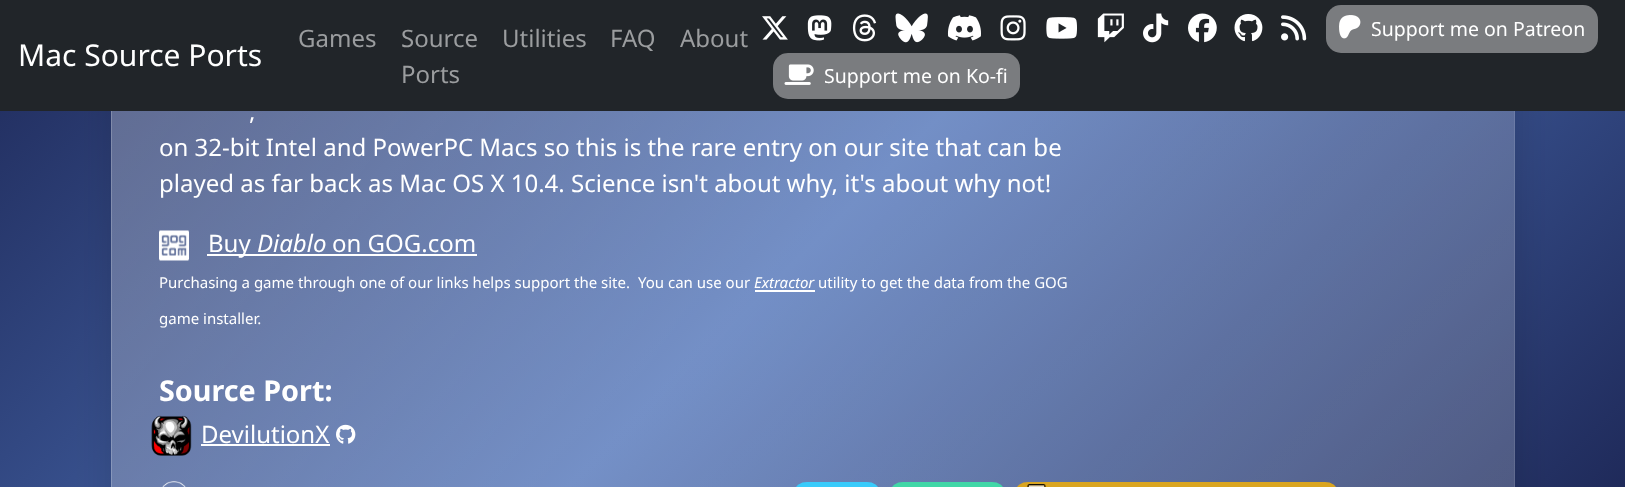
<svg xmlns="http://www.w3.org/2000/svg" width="1625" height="487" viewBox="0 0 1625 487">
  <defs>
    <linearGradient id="g1" gradientUnits="userSpaceOnUse" x1="285" y1="-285" x2="1341" y2="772"><stop offset="0" stop-color="#1f2a5a"/><stop offset="0.5" stop-color="#4b6fb6"/><stop offset="1" stop-color="#1f2a5a"/></linearGradient>
    <clipPath id="clip1"><path d="M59 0H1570V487H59ZM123-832H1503C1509.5-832 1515-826.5 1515-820V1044C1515 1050.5 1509.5 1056 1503 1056H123C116.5 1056 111 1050.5 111 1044V-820C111-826.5 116.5-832 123-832Z" clip-rule="evenodd"/></clipPath>
    <filter id="blur1" x="-50%" y="-200%" width="200%" height="500%"><feGaussianBlur stdDeviation="18"/></filter>
    <linearGradient id="g2" gradientUnits="userSpaceOnUse" x1="-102" y1="-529" x2="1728" y2="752"><stop offset="0" stop-color="#ffffff" stop-opacity="0.3"/><stop offset="0.7" stop-color="#ffffff" stop-opacity="0.2"/></linearGradient>
  </defs>
  <rect width="100%" height="100%" fill="#ffffff"/>
  <rect x="0" y="111" width="1625" height="376" fill="url(#g1)"/>
  <g clip-path="url(#clip1)">
    <rect x="114" y="-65" width="1401" height="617" rx="11" fill="#000000" fill-opacity="0.15" filter="url(#blur1)"/>
  </g>
  <rect x="111" y="111" width="1404" height="376" fill="url(#g2)"/>
  <path d="M112 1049C114 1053 118 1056 123 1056H1503C1510 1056 1515 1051 1515 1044V-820C1515-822 1514-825 1513-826L1514-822V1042C1514 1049 1508 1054 1502 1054H122C118 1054 114 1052 112 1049Z" fill="#ffffff" fill-opacity="0.1"/>
  <path d="M124-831H1504C1507-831 1509-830 1511-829C1509-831 1506-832 1503-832H123C116-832 111-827 111-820V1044C111 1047 112 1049 114 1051C113 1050 112 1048 112 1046V-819C112-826 118-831 124-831Z" fill="#ffffff" fill-opacity="0.2"/>
  <rect x="0" y="0" width="1625" height="111" fill="#212529"/>
  <text x="18" y="66" font-family="Noto Sans" font-size="30" fill="#ffffff">Mac Source Ports</text>
  <text x="298" y="47" font-family="Noto Sans" font-size="24" fill="#9b9d9f">Games</text>
  <text x="401" y="47" font-family="Noto Sans" font-size="24" fill="#9b9d9f">Source</text>
  <text x="401" y="83" font-family="Noto Sans" font-size="24" fill="#9b9d9f">Ports</text>
  <text x="502" y="47" font-family="Noto Sans" font-size="24" fill="#9b9d9f">Utilities</text>
  <text x="610" y="47" font-family="Noto Sans" font-size="24" fill="#9b9d9f">FAQ</text>
  <text x="680" y="47" font-family="Noto Sans" font-size="24" fill="#9b9d9f">About</text>
  <image x="762" y="16" width="26" height="24" href="img1.png"/>
  <image x="807" y="15" width="25" height="26" href="img2.png"/>
  <image x="852" y="14" width="25" height="28" href="img3.png"/>
  <image x="895" y="13" width="33" height="30" href="img4.png"/>
  <image x="947" y="15" width="34" height="26" href="img5.png"/>
  <image x="1000" y="15" width="26" height="26" href="img6.png"/>
  <image x="1046" y="17" width="31" height="22" href="img7.png"/>
  <image x="1097" y="13" width="27" height="30" href="img8.png"/>
  <image x="1143" y="13" width="26" height="30" href="img9.png"/>
  <image x="1188" y="13" width="29" height="30" href="img10.png"/>
  <image x="1234" y="14" width="29" height="28" href="img11.png"/>
  <image x="1281" y="15" width="26" height="26" href="img12.png"/>
  <rect x="1326" y="5" width="272" height="48" rx="15" fill="#7a7c7f"/>
  <image x="1339" y="15" width="22" height="24" href="img13.png"/>
  <text x="1371" y="36" font-family="Noto Sans" font-size="19.5" fill="#ffffff">Support me on Patreon</text>
  <rect x="773" y="53" width="247" height="46" rx="15" fill="#7a7c7f"/>
  <image x="784" y="64" width="30" height="21" href="img14.png"/>
  <text x="824" y="83" font-family="Noto Sans" font-size="19.5" fill="#ffffff">Support me on Ko-fi</text>
  <text x="249" y="120" font-family="Noto Sans" font-size="24" fill="#ffffff">,</text>
  <text x="159" y="156" font-family="Noto Sans" font-size="24" fill="#ffffff">on 32-bit Intel and PowerPC Macs so this is the rare entry on our site that can be</text>
  <text x="159" y="192" font-family="Noto Sans" font-size="24" fill="#ffffff">played as far back as Mac OS X 10.4. Science isn't about why, it's about why not!</text>
  <image x="159" y="230" width="30" height="31" href="img15.png"/>
  <rect x="207" y="254" width="270" height="2" fill="#ffffff"/>
  <text x="208" y="252" font-family="Noto Sans" font-size="24" fill="#ffffff">Buy</text>
  <text x="257" y="252" font-family="Noto Sans" font-size="24" font-style="italic" fill="#ffffff">Diablo</text>
  <text x="332" y="252" font-family="Noto Sans" font-size="24" fill="#ffffff">on GOG.com</text>
  <text x="159" y="288" font-family="Noto Sans" font-size="15" fill="#ffffff">Purchasing a game through one of our links helps support the site.</text>
  <text x="638" y="288" font-family="Noto Sans" font-size="15" fill="#ffffff">You can use our</text>
  <text x="754" y="288" font-family="Noto Sans" font-size="15" font-style="italic" fill="#ffffff">Extractor</text>
  <rect x="755" y="290" width="60" height="2" fill="#ffffff"/>
  <text x="818" y="288" font-family="Noto Sans" font-size="15" fill="#ffffff">utility to get the data from the GOG</text>
  <text x="159" y="324" font-family="Noto Sans" font-size="15" fill="#ffffff">game installer.</text>
  <text x="159" y="401" font-family="Noto Sans" font-size="28.75" font-weight="bold" fill="#ffffff">Source Port:</text>
  <image x="151" y="415" width="41" height="41" href="img16.png"/>
  <text x="201" y="443" font-family="Noto Sans" font-size="24" fill="#ffffff">DevilutionX</text>
  <rect x="201" y="444" width="129" height="2" fill="#ffffff"/>
  <image x="336" y="424" width="20" height="20" href="img17.png"/>
  <image x="162" y="481" width="24" height="6" href="img18.png"/>
  <rect x="795" y="482" width="84" height="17" rx="12" fill="#39cbfb"/>
  <rect x="891" y="482" width="113" height="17" rx="12" fill="#41d7a7"/>
  <rect x="1016" y="482" width="321" height="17" rx="12" fill="#daa520"/>
  <image x="1027" y="484" width="19" height="3" href="img19.png"/>
</svg>
